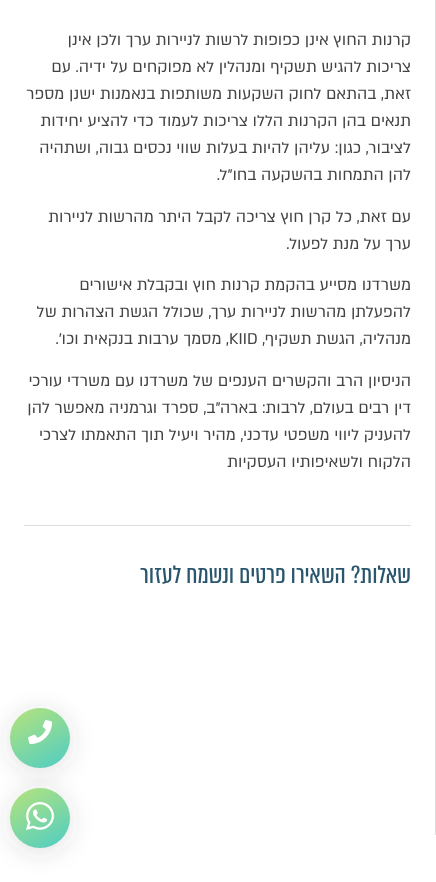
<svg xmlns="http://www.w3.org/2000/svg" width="436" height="882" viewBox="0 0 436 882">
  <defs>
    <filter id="blur1" x="-50%" y="-200%" width="200%" height="500%"><feGaussianBlur stdDeviation="12"/></filter>
    <linearGradient id="g1" gradientUnits="userSpaceOnUse" x1="20" y1="703" x2="60" y2="773"><stop offset="0" stop-color="#b6e37c"/><stop offset="1" stop-color="#4ecdc4"/></linearGradient>
    <linearGradient id="g2" gradientUnits="userSpaceOnUse" x1="20" y1="783" x2="60" y2="853"><stop offset="0" stop-color="#b6e37c"/><stop offset="1" stop-color="#4ecdc4"/></linearGradient>
  </defs>
  <rect width="100%" height="100%" fill="#ffffff"/>
  <rect x="435" y="0" width="1" height="835" fill="#dddddd"/>
  <text x="411" y="45" font-family="'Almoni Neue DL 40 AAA'" font-size="18" direction="rtl" fill="#434343">קרנות החוץ אינן כפופות לרשות לניירות ערך ולכן אינן</text>
  <text x="411" y="72" font-family="'Almoni Neue DL 40 AAA'" font-size="18" direction="rtl" fill="#434343">צריכות להגיש תשקיף ומנהלין לא מפוקחים על ידיה. עם</text>
  <text x="411" y="99" font-family="'Almoni Neue DL 40 AAA'" font-size="18" direction="rtl" fill="#434343">זאת, בהתאם לחוק השקעות משותפות בנאמנות ישנן מספר</text>
  <text x="411" y="126" font-family="'Almoni Neue DL 40 AAA'" font-size="18" direction="rtl" fill="#434343">תנאים בהן הקרנות הללו צריכות לעמוד כדי להציע יחידות</text>
  <text x="411" y="153" font-family="'Almoni Neue DL 40 AAA'" font-size="18" direction="rtl" fill="#434343">לציבור, כגון: עליהן להיות בעלות שווי נכסים גבוה, ושתהיה</text>
  <text x="411" y="180" font-family="'Almoni Neue DL 40 AAA'" font-size="18" direction="rtl" fill="#434343">להן התמחות בהשקעה בחו"ל.</text>
  <text x="411" y="222" font-family="'Almoni Neue DL 40 AAA'" font-size="18" direction="rtl" fill="#434343">עם זאת, כל קרן חוץ צריכה לקבל היתר מהרשות לניירות</text>
  <text x="411" y="249" font-family="'Almoni Neue DL 40 AAA'" font-size="18" direction="rtl" fill="#434343">ערך על מנת לפעול.</text>
  <text x="411" y="290" font-family="'Almoni Neue DL 40 AAA'" font-size="18" direction="rtl" fill="#434343">משרדנו מסייע בהקמת קרנות חוץ ובקבלת אישורים</text>
  <text x="411" y="317" font-family="'Almoni Neue DL 40 AAA'" font-size="18" direction="rtl" fill="#434343">להפעלתן מהרשות לניירות ערך, שכולל הגשת הצהרות של</text>
  <text x="411" y="344" font-family="'Almoni Neue DL 40 AAA'" font-size="18" direction="rtl" fill="#434343">מנהליה, הגשת תשקיף,</text>
  <text x="229" y="344" font-family="'Almoni Neue DL 40 AAA'" font-size="18" fill="#434343">KIID</text>
  <text x="229" y="344" font-family="'Almoni Neue DL 40 AAA'" font-size="18" direction="rtl" fill="#434343">, מסמך ערבות בנקאית וכו'.</text>
  <text x="411" y="386" font-family="'Almoni Neue DL 40 AAA'" font-size="18" direction="rtl" fill="#434343">הניסיון הרב והקשרים הענפים של משרדנו עם משרדי עורכי</text>
  <text x="411" y="413" font-family="'Almoni Neue DL 40 AAA'" font-size="18" direction="rtl" fill="#434343">דין רבים בעולם, לרבות: בארה"ב, ספרד וגרמניה מאפשר להן</text>
  <text x="411" y="440" font-family="'Almoni Neue DL 40 AAA'" font-size="18" direction="rtl" fill="#434343">להעניק ליווי משפטי עדכני, מהיר ויעיל תוך התאמתו לצרכי</text>
  <text x="411" y="467" font-family="'Almoni Neue DL 40 AAA'" font-size="18" direction="rtl" fill="#434343">הלקוח ולשאיפותיו העסקיות</text>
  <rect x="24" y="525" width="387" height="1" fill="#dddddd"/>
  <text x="411" y="583" font-family="'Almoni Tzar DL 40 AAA'" font-size="29" direction="rtl" fill="#2a566d">שאלות? השאירו פרטים ונשמח לעזור</text>
  <rect x="10" y="712" width="60" height="60" rx="30" fill="#434343" fill-opacity="0.16" filter="url(#blur1)"/>
  <circle cx="40" cy="738" r="30" fill="url(#g1)"/>
  <image x="28" y="720" width="24" height="24" href="img1.png"/>
  <rect x="10" y="792" width="60" height="60" rx="30" fill="#434343" fill-opacity="0.16" filter="url(#blur1)"/>
  <circle cx="40" cy="818" r="30" fill="url(#g2)"/>
  <image x="26" y="802" width="28" height="28" href="img2.png"/>
</svg>
